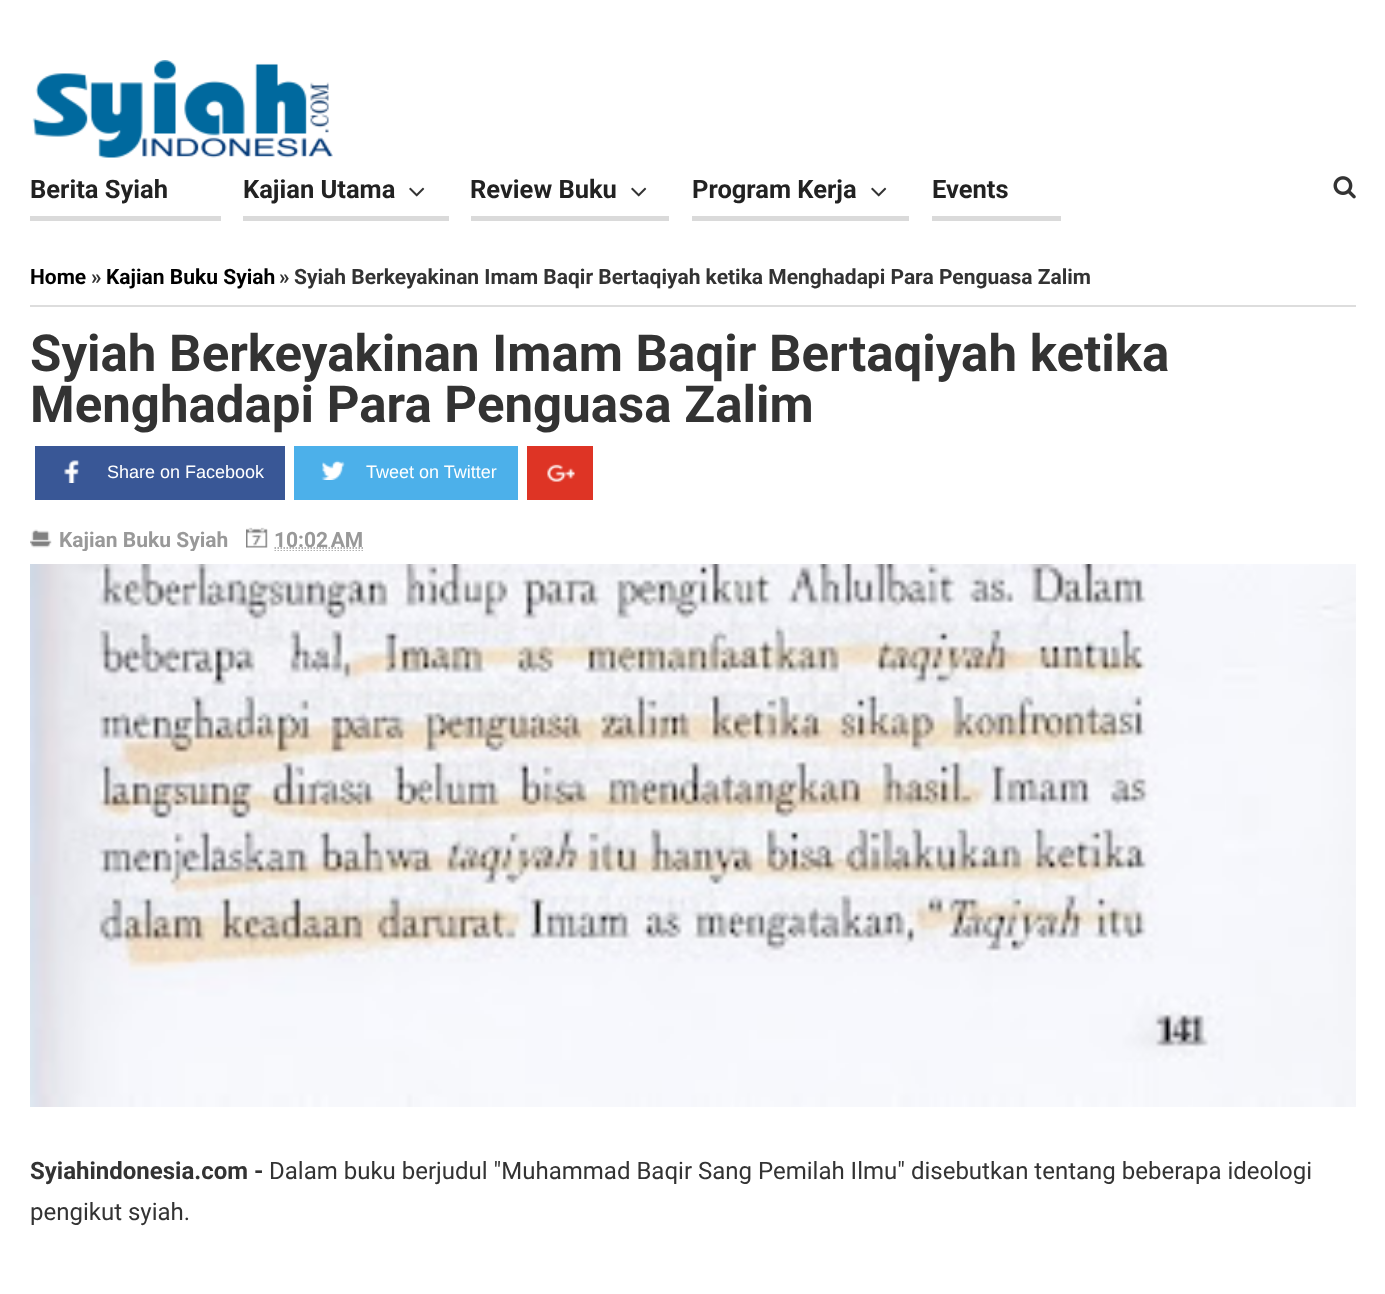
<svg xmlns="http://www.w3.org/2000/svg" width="1385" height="1294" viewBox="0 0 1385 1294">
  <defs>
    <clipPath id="clip1"><rect x="30" y="527" width="1326" height="24"/></clipPath>
  </defs>
  <rect width="100%" height="100%" fill="#ffffff"/>
  <image x="32" y="60" width="301" height="98" href="img1.png"/>
  <rect x="30" y="216" width="191" height="5" fill="#dadada"/>
  <text x="30" y="198" font-family="Roboto" font-size="25.5" font-weight="bold" fill="#222222">Berita Syiah</text>
  <rect x="243" y="216" width="206" height="5" fill="#dadada"/>
  <text x="243" y="198" font-family="Roboto" font-size="25.5" font-weight="bold" fill="#222222">Kajian Utama</text>
  <image x="409" y="187" width="16" height="10" href="img2.png"/>
  <rect x="471" y="216" width="198" height="5" fill="#dadada"/>
  <text x="470" y="198" font-family="Roboto" font-size="25.5" font-weight="bold" fill="#222222">Review Buku</text>
  <image x="631" y="187" width="16" height="10" href="img2.png"/>
  <rect x="692" y="216" width="217" height="5" fill="#dadada"/>
  <text x="692" y="198" font-family="Roboto" font-size="25.5" font-weight="bold" fill="#222222">Program Kerja</text>
  <image x="871" y="187" width="16" height="10" href="img2.png"/>
  <rect x="932" y="216" width="129" height="5" fill="#dadada"/>
  <text x="932" y="198" font-family="Roboto" font-size="25.5" font-weight="bold" fill="#222222">Events</text>
  <image x="1333" y="176" width="23" height="23" href="img3.png"/>
  <rect x="30" y="305" width="1326" height="2" fill="#dddddd"/>
  <text x="30" y="284" font-family="Roboto" font-size="21" font-weight="bold" fill="#000000">Home</text>
  <text x="91" y="284" font-family="Roboto" font-size="21" font-weight="bold" fill="#333333">»</text>
  <text x="106" y="284" font-family="Roboto" font-size="21" font-weight="bold" fill="#000000">Kajian Buku Syiah</text>
  <text x="279" y="284" font-family="Roboto" font-size="21" font-weight="bold" fill="#333333">»</text>
  <text x="294" y="284" font-family="Roboto" font-size="21" font-weight="bold" fill="#333333">Syiah Berkeyakinan Imam Baqir Bertaqiyah ketika Menghadapi Para Penguasa Zalim</text>
  <text x="30" y="371" font-family="Roboto" font-size="51" font-weight="bold" fill="#333333">Syiah Berkeyakinan Imam Baqir Bertaqiyah ketika</text>
  <text x="30" y="422" font-family="Roboto" font-size="51" font-weight="bold" fill="#333333">Menghadapi Para Penguasa Zalim</text>
  <rect x="35" y="446" width="250" height="54" fill="#395796"/>
  <image x="64" y="460" width="16" height="23" href="img4.png"/>
  <text x="107" y="478" font-family="Liberation Sans" font-size="18" fill="#ffffff">Share on Facebook</text>
  <rect x="294" y="446" width="224" height="54" fill="#4cb0ea"/>
  <image x="321" y="460" width="24" height="20" href="img5.png"/>
  <text x="366" y="478" font-family="Liberation Sans" font-size="18" fill="#ffffff">Tweet on Twitter</text>
  <rect x="527" y="446" width="66" height="54" fill="#de3425"/>
  <image x="547" y="464" width="28" height="18" href="img6.png"/>
  <image x="30" y="529" width="22" height="19" href="img7.png"/>
  <g clip-path="url(#clip1)">
    <text x="59" y="547" font-family="Roboto" font-size="21" font-weight="bold" fill="#999999">Kajian Buku Syiah</text>
  </g>
  <image x="246" y="527" width="22" height="21" href="img8.png"/>
  <path d="M274.5 548H363.5" fill="none" stroke="#999999" stroke-width="1.5" stroke-dasharray="1.5 1.5"/>
  <text x="274" y="547" font-family="Roboto" font-size="21" font-weight="bold" fill="#999999">10:02 AM</text>
  <g clip-path="url(#clip1)">
    <path d="M274.5 551H363" fill="none" stroke="#999999" stroke-width="1.5" stroke-dasharray="1.5 1.5"/>
  </g>
  <image x="30" y="564" width="1326" height="543" href="img9.png"/>
  <text x="30" y="1179" font-family="Roboto" font-size="24" font-weight="bold" fill="#333333">Syiahindonesia.com -</text>
  <text x="269" y="1179" font-family="Roboto" font-size="24" fill="#333333">Dalam buku berjudul "Muhammad Baqir Sang Pemilah Ilmu" disebutkan tentang beberapa ideologi</text>
  <text x="30" y="1220" font-family="Roboto" font-size="24" fill="#333333">pengikut syiah.</text>
</svg>
